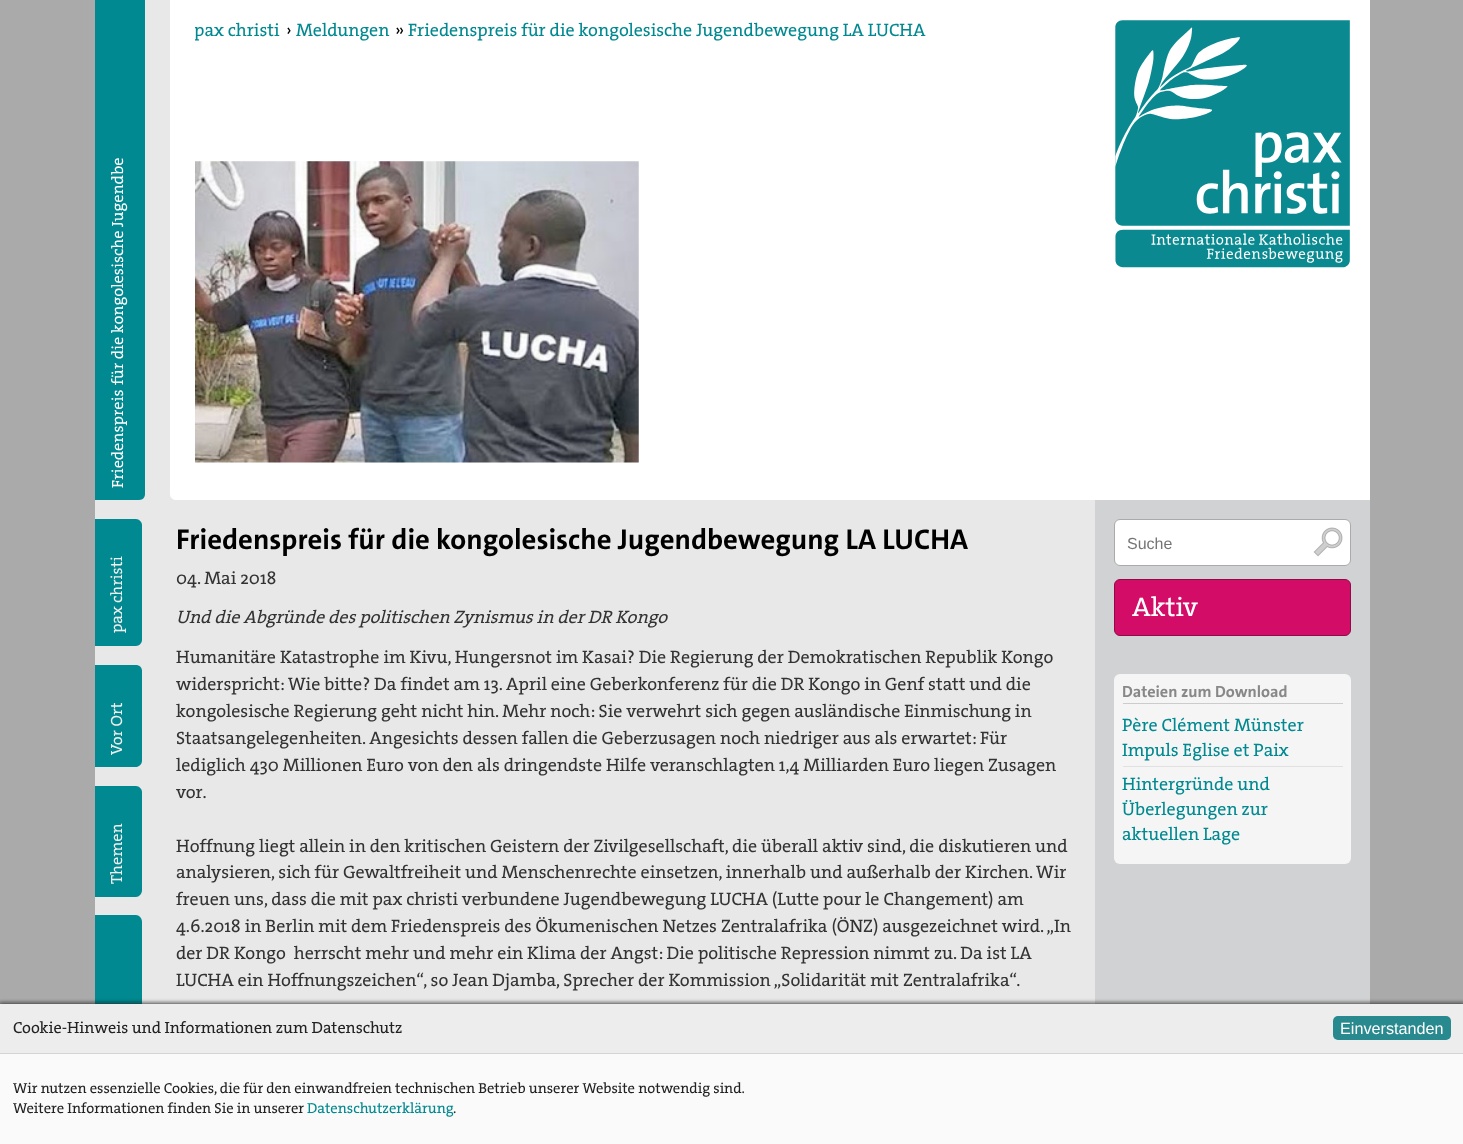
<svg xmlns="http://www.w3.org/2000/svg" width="1463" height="1144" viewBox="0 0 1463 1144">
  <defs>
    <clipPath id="clip1"><rect x="195" y="19" width="85" height="25"/></clipPath>
    <clipPath id="clip2"><rect x="95" y="0" width="1275" height="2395"/></clipPath>
    <filter id="blur1" x="-50%" y="-200%" width="200%" height="500%"><feGaussianBlur stdDeviation="2"/></filter>
  </defs>
  <rect width="100%" height="100%" fill="#aaaaaa"/>
  <rect x="95" y="0" width="1000" height="1004" fill="#e8e8e8"/>
  <path d="M170 0H1370V500H176C172.5 500 170 497.5 170 494Z" fill="#ffffff"/>
  <g clip-path="url(#clip1)">
    <text x="194" y="36" font-family="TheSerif" font-size="18" font-weight="500" fill="#008990">pax christi</text>
  </g>
  <text x="286" y="36" font-family="TheSerif" font-size="18" font-weight="500" fill="#000000">›</text>
  <text x="296" y="36" font-family="TheSerif" font-size="18" font-weight="500" fill="#008990">Meldungen</text>
  <text x="395" y="36" font-family="TheSerif" font-size="18" font-weight="500" fill="#000000">»</text>
  <text x="408" y="36" font-family="TheSerif" font-size="18" font-weight="500" fill="#008990">Friedenspreis für die kongolesische Jugendbewegung LA LUCHA</text>
  <image x="1115" y="20" width="235" height="248" href="img1.png"/>
  <g clip-path="url(#clip2)">
    <path d="M94 500V0H145V494C145 497 143 500 139 500Z" fill="#008990"/>
  </g>
  <text x="123" y="385" transform="rotate(-90 123 385)" font-family="TheSerif" font-size="16.25" font-weight="500" fill="#ffffff">für die kongolesische Jugendbe</text>
  <text x="123" y="488" transform="rotate(-90 123 488)" font-family="TheSerif" font-size="16.25" font-weight="500" fill="#ffffff">Friedenspreis</text>
  <g clip-path="url(#clip2)">
    <path d="M93 646V519H136C139 519 142 522 142 525V640C142 643 139 646 136 646Z" fill="#008990"/>
  </g>
  <text x="122" y="603" transform="rotate(-90 122 603)" font-family="TheSerif" font-size="16.25" font-weight="500" fill="#eeeeee">christi</text>
  <text x="122" y="633" transform="rotate(-90 122 633)" font-family="TheSerif" font-size="16.25" font-weight="500" fill="#eeeeee">pax</text>
  <g clip-path="url(#clip2)">
    <path d="M93 767V665H136C139 665 142 667 142 671V761C142 764 139 767 136 767Z" fill="#008990"/>
  </g>
  <text x="122" y="755" transform="rotate(-90 122 755)" font-family="TheSerif" font-size="16.25" font-weight="500" fill="#eeeeee">Vor Ort</text>
  <g clip-path="url(#clip2)">
    <path d="M93 897V786H136C139 786 142 789 142 792V890C142 894 139 897 136 897Z" fill="#008990"/>
  </g>
  <text x="122" y="884" transform="rotate(-90 122 884)" font-family="TheSerif" font-size="16.25" font-weight="500" fill="#eeeeee">Themen</text>
  <g clip-path="url(#clip2)">
    <path d="M93 1055V915H136C139 915 142 918 142 922V1049C142 1052 139 1055 136 1055Z" fill="#008990"/>
  </g>
  <image x="195" y="161" width="444" height="302" href="img2.png"/>
  <text x="176" y="549" font-family="'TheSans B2'" font-size="28.8" font-weight="bold" fill="#000000">Friedenspreis für die kongolesische Jugendbewegung LA LUCHA</text>
  <text x="176" y="584" font-family="TheSerif" font-size="18" font-weight="500" fill="#333333">04. Mai 2018</text>
  <text x="176" y="623" font-family="TheSerif" font-size="18" font-weight="500" font-style="italic" fill="#333333">Und die Abgründe des politischen Zynismus in der DR Kongo</text>
  <text x="176" y="663" font-family="TheSerif" font-size="18" font-weight="500" fill="#333333">Humanitäre Katastrophe im Kivu, Hungersnot im Kasai? Die Regierung der Demokratischen Republik Kongo</text>
  <text x="176" y="690" font-family="TheSerif" font-size="18" font-weight="500" fill="#333333">widerspricht: Wie bitte? Da findet am 13. April eine Geberkonferenz für die DR Kongo in Genf statt und die</text>
  <text x="176" y="717" font-family="TheSerif" font-size="18" font-weight="500" fill="#333333">kongolesische Regierung geht nicht hin. Mehr noch: Sie verwehrt sich gegen ausländische Einmischung in</text>
  <text x="176" y="744" font-family="TheSerif" font-size="18" font-weight="500" fill="#333333">Staatsangelegenheiten. Angesichts dessen fallen die Geberzusagen noch niedriger aus als erwartet: Für</text>
  <text x="176" y="771" font-family="TheSerif" font-size="18" font-weight="500" fill="#333333">lediglich 430 Millionen Euro von den als dringendste Hilfe veranschlagten 1,4 Milliarden Euro liegen Zusagen</text>
  <text x="176" y="798" font-family="TheSerif" font-size="18" font-weight="500" fill="#333333">vor.</text>
  <text x="176" y="852" font-family="TheSerif" font-size="18" font-weight="500" fill="#333333">Hoffnung liegt allein in den kritischen Geistern der Zivilgesellschaft, die überall aktiv sind, die diskutieren und</text>
  <text x="176" y="878" font-family="TheSerif" font-size="18" font-weight="500" fill="#333333">analysieren, sich für Gewaltfreiheit und Menschenrechte einsetzen, innerhalb und außerhalb der Kirchen. Wir</text>
  <text x="176" y="905" font-family="TheSerif" font-size="18" font-weight="500" fill="#333333">freuen uns, dass die mit pax christi verbundene Jugendbewegung LUCHA (Lutte pour le Changement) am</text>
  <text x="176" y="932" font-family="TheSerif" font-size="18" font-weight="500" fill="#333333">4.6.2018 in Berlin mit dem Friedenspreis des Ökumenischen Netzes Zentralafrika (ÖNZ) ausgezeichnet wird. „In</text>
  <text x="176" y="959" font-family="TheSerif" font-size="18" font-weight="500" fill="#333333" xml:space="preserve">der DR Kongo  herrscht mehr und mehr ein Klima der Angst: Die politische Repression nimmt zu. Da ist LA</text>
  <text x="176" y="986" font-family="TheSerif" font-size="18" font-weight="500" fill="#333333">LUCHA ein Hoffnungszeichen“, so Jean Djamba, Sprecher der Kommission „Solidarität mit Zentralafrika“.</text>
  <rect x="1095" y="500" width="275" height="504" fill="#d1d2d3"/>
  <rect x="1114.5" y="519.5" width="236" height="46" rx="5.5" fill="#ffffff" stroke="#aaaaaa"/>
  <text x="1127" y="549" font-family="Liberation Sans" font-size="16" fill="#757575">Suche</text>
  <image x="1313" y="527" width="30" height="30" href="img3.png"/>
  <rect x="1114.5" y="579.5" width="236" height="56" rx="5.5" fill="#d30c67" stroke="#8e0b47"/>
  <text x="1132" y="616" font-family="TheSerif" font-size="27" font-weight="500" fill="#ffffff">Aktiv</text>
  <rect x="1114" y="674" width="237" height="190" rx="6" fill="#f5f5f5"/>
  <rect x="1123" y="703" width="220" height="1" fill="#cccccc"/>
  <text x="1122" y="697" font-family="'TheSans B2'" font-size="16.2" font-weight="bold" fill="#888888">Dateien zum Download</text>
  <rect x="1123" y="766" width="220" height="1" fill="#e1e1e1"/>
  <text x="1122" y="731" font-family="TheSerif" font-size="18" font-weight="500" fill="#008990">Père Clément Münster</text>
  <text x="1122" y="756" font-family="TheSerif" font-size="18" font-weight="500" fill="#008990">Impuls Eglise et Paix</text>
  <text x="1122" y="790" font-family="TheSerif" font-size="18" font-weight="500" fill="#008990">Hintergründe und</text>
  <text x="1122" y="815" font-family="TheSerif" font-size="18" font-weight="500" fill="#008990">Überlegungen zur</text>
  <text x="1122" y="840" font-family="TheSerif" font-size="18" font-weight="500" fill="#008990">aktuellen Lage</text>
  <rect x="-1" y="1003" width="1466" height="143" fill="#191919" fill-opacity="0.8" filter="url(#blur1)"/>
  <rect x="0" y="1054" width="1463" height="90" fill="#fafafa"/>
  <rect x="0" y="1004" width="1463" height="49" fill="#ededed"/>
  <rect x="0" y="1053" width="1463" height="1" fill="#d4d4d4"/>
  <text x="13" y="1033" font-family="TheSerif" font-size="16.2" font-weight="500" fill="#222222">Cookie-Hinweis und Informationen zum Datenschutz</text>
  <rect x="1333" y="1016" width="118" height="24" rx="5" fill="#28898f"/>
  <text x="1340" y="1034" font-family="Liberation Sans" font-size="16.2" fill="#ffffff">Einverstanden</text>
  <text x="13" y="1093" font-family="TheSerif" font-size="14.58" font-weight="500" fill="#222222">Wir nutzen essenzielle Cookies, die für den einwandfreien technischen Betrieb unserer Website notwendig sind.</text>
  <text x="13" y="1113" font-family="TheSerif" font-size="14.58" font-weight="500" fill="#222222">Weitere Informationen finden Sie in unserer</text>
  <text x="307" y="1113" font-family="TheSerif" font-size="14.58" font-weight="500" fill="#008990">Datenschutzerklärung</text>
  <text x="453" y="1113" font-family="TheSerif" font-size="14.58" font-weight="500" fill="#222222">.</text>
</svg>
